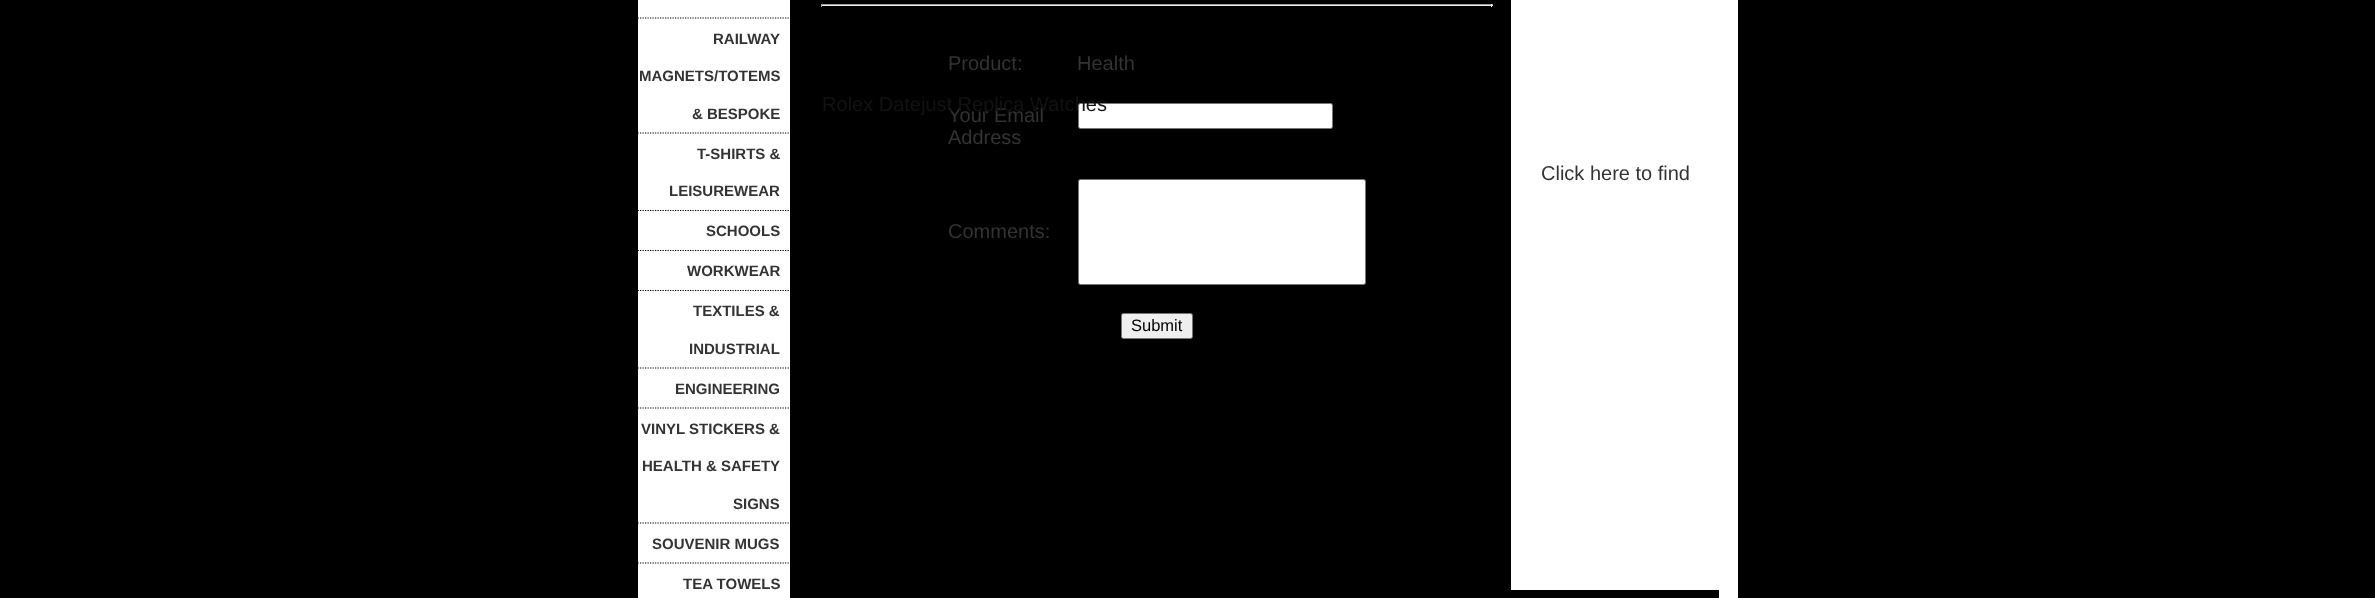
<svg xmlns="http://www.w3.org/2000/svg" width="2375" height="598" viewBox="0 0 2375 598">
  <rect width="100%" height="100%" fill="#000000"/>
  <rect x="638" y="0" width="152" height="598" fill="#ffffff"/>
  <path d="M637.5 18H790" fill="none" stroke="#000000" stroke-width="1.2" stroke-dasharray="1.25 1.25"/>
  <path d="M637.5 133H790" fill="none" stroke="#000000" stroke-width="1.2" stroke-dasharray="1.25 1.25"/>
  <text x="713" y="44" font-family="Liberation Sans" font-size="15" font-weight="bold" fill="#333333">RAILWAY</text>
  <text x="639" y="81" font-family="Liberation Sans" font-size="15" font-weight="bold" fill="#333333">MAGNETS/TOTEMS</text>
  <text x="692" y="119" font-family="Liberation Sans" font-size="15" font-weight="bold" fill="#333333">&amp; BESPOKE</text>
  <path d="M637.5 210.5H790" fill="none" stroke="#000000" stroke-width="1.2" stroke-dasharray="1.25 1.25"/>
  <text x="697" y="159" font-family="Liberation Sans" font-size="15" font-weight="bold" fill="#333333">T-SHIRTS &amp;</text>
  <text x="669" y="196" font-family="Liberation Sans" font-size="15" font-weight="bold" fill="#333333">LEISUREWEAR</text>
  <path d="M637.5 250.5H790" fill="none" stroke="#000000" stroke-width="1.2" stroke-dasharray="1.25 1.25"/>
  <text x="706" y="236" font-family="Liberation Sans" font-size="15" font-weight="bold" fill="#333333">SCHOOLS</text>
  <path d="M637.5 290.5H790" fill="none" stroke="#000000" stroke-width="1.2" stroke-dasharray="1.25 1.25"/>
  <text x="687" y="276" font-family="Liberation Sans" font-size="15" font-weight="bold" fill="#333333">WORKWEAR</text>
  <path d="M637.5 368H790" fill="none" stroke="#000000" stroke-width="1.2" stroke-dasharray="1.25 1.25"/>
  <text x="693" y="316" font-family="Liberation Sans" font-size="15" font-weight="bold" fill="#333333">TEXTILES &amp;</text>
  <text x="689" y="354" font-family="Liberation Sans" font-size="15" font-weight="bold" fill="#333333">INDUSTRIAL</text>
  <path d="M637.5 408H790" fill="none" stroke="#000000" stroke-width="1.2" stroke-dasharray="1.25 1.25"/>
  <text x="675" y="394" font-family="Liberation Sans" font-size="15" font-weight="bold" fill="#333333">ENGINEERING</text>
  <path d="M637.5 523H790" fill="none" stroke="#000000" stroke-width="1.2" stroke-dasharray="1.25 1.25"/>
  <text x="641" y="434" font-family="Liberation Sans" font-size="15" font-weight="bold" fill="#333333">VINYL STICKERS &amp;</text>
  <text x="642" y="471" font-family="Liberation Sans" font-size="15" font-weight="bold" fill="#333333">HEALTH &amp; SAFETY</text>
  <text x="733" y="509" font-family="Liberation Sans" font-size="15" font-weight="bold" fill="#333333">SIGNS</text>
  <path d="M637.5 563H790" fill="none" stroke="#000000" stroke-width="1.2" stroke-dasharray="1.25 1.25"/>
  <text x="652" y="549" font-family="Liberation Sans" font-size="15" font-weight="bold" fill="#333333">SOUVENIR MUGS</text>
  <text x="683" y="589" font-family="Liberation Sans" font-size="15" font-weight="bold" fill="#333333">TEA TOWELS</text>
  <rect x="1511" y="0" width="227" height="590" fill="#ffffff"/>
  <rect x="821" y="4" width="672" height="1" fill="#9f9f9f"/>
  <rect x="1491" y="4" width="1" height="3" fill="#eeeeee"/>
  <rect x="821" y="5" width="672" height="1" fill="#eeeeee"/>
  <rect x="821" y="4" width="1" height="3" fill="#9f9f9f"/>
  <text x="948" y="70" font-family="Liberation Sans" font-size="20" fill="#333333">Product:</text>
  <text x="1077" y="70" font-family="Liberation Sans" font-size="20" fill="#333333">Health</text>
  <text x="948" y="122" font-family="Liberation Sans" font-size="20" fill="#333333">Your Email</text>
  <text x="948" y="144" font-family="Liberation Sans" font-size="20" fill="#333333">Address</text>
  <rect x="1078.5" y="103.5" width="254" height="25" rx="2" fill="#ffffff" stroke="#767676"/>
  <text x="948" y="238" font-family="Liberation Sans" font-size="20" fill="#333333">Comments:</text>
  <rect x="1078.5" y="179.5" width="287" height="105" rx="2" fill="#ffffff" stroke="#767676"/>
  <rect x="1121.5" y="313.5" width="71" height="25" rx="2" fill="#efefef" stroke="#767676"/>
  <text x="1131" y="331" font-family="Liberation Sans" font-size="16.5" fill="#000000">Submit</text>
  <text x="822" y="111" font-family="Liberation Sans" font-size="20" fill="#121212">Rolex Datejust Replica Watches</text>
  <text x="1541" y="180" font-family="Liberation Sans" font-size="20" fill="#333333">Click here to find</text>
  <rect x="1719" y="590" width="19" height="8" fill="#ffffff"/>
</svg>
